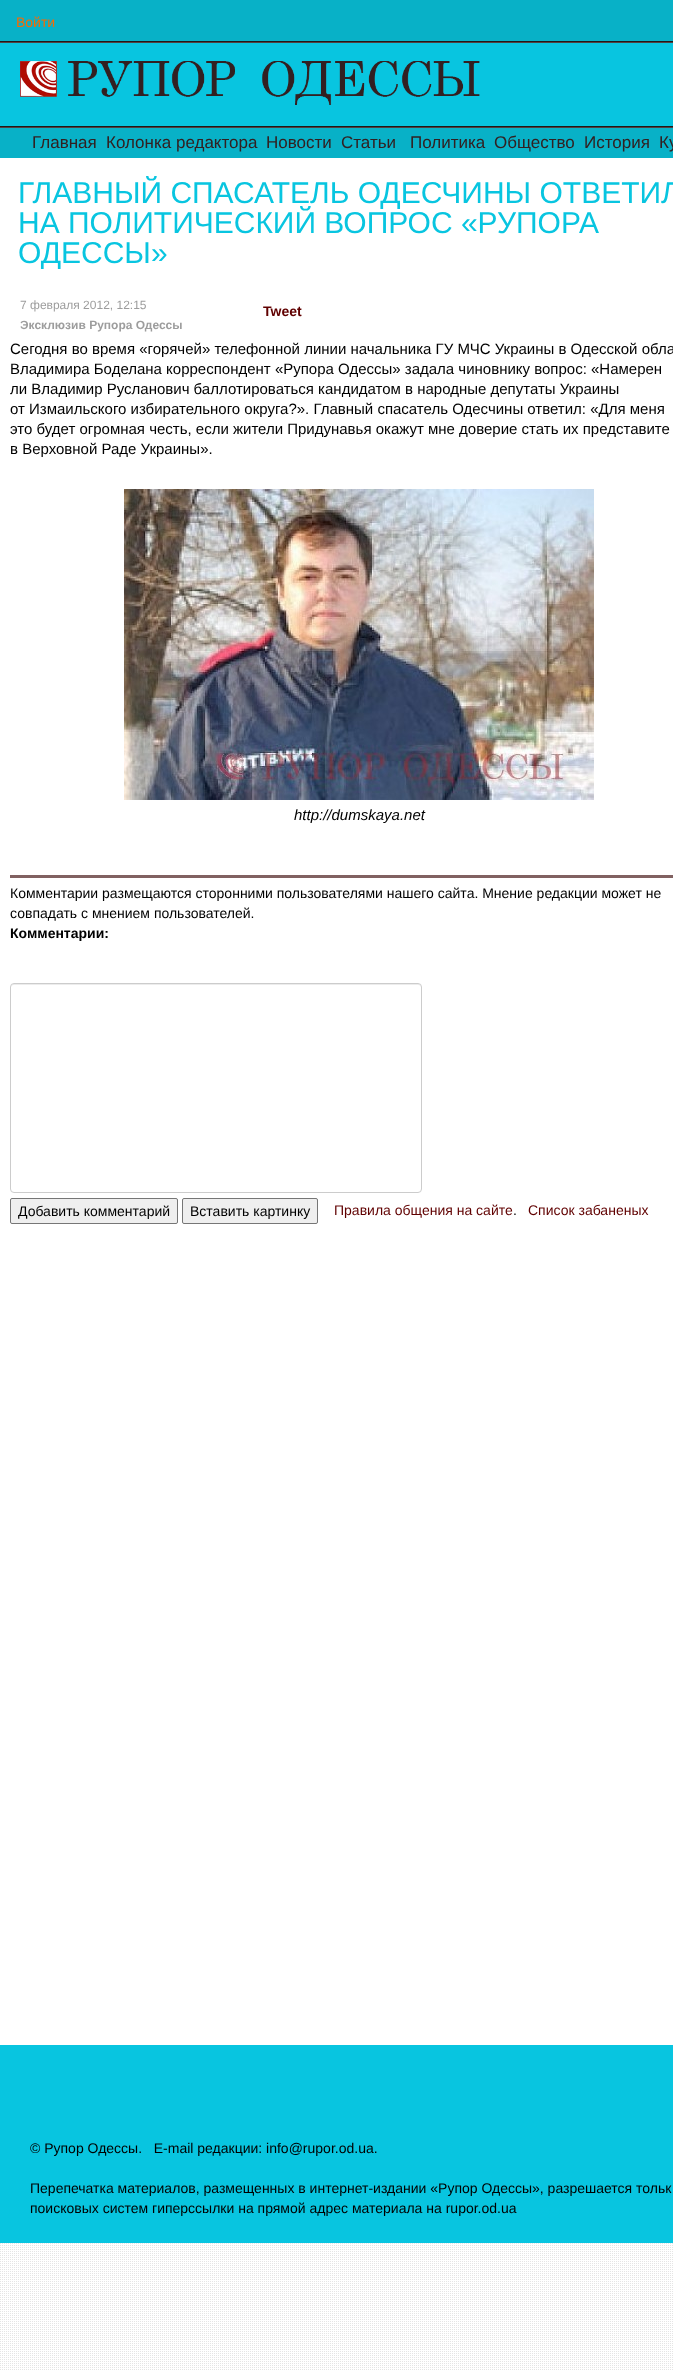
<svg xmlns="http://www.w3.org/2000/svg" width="673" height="2371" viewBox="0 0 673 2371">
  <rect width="100%" height="100%" fill="#ffffff"/>
  <image x="0" y="2243" width="673" height="127" href="img1.png"/>
  <rect x="0" y="43" width="673" height="83" fill="#08c5e0"/>
  <rect x="0" y="0" width="673" height="41" fill="#08b1c7"/>
  <text x="16" y="27" font-family="Liberation Sans" font-size="14" fill="#f96a01">Войти</text>
  <image x="0" y="41" width="673" height="2" href="img2.png"/>
  <image x="20" y="61" width="460" height="44" href="img3.png"/>
  <image x="0" y="126" width="673" height="2" href="img2.png"/>
  <rect x="0" y="128" width="673" height="30" fill="#08b1c7"/>
  <text x="32" y="148" font-family="Liberation Sans" font-size="17" fill="#322021">Главная</text>
  <text x="106" y="148" font-family="Liberation Sans" font-size="17" fill="#322021">Колонка редактора</text>
  <text x="266" y="148" font-family="Liberation Sans" font-size="17" fill="#322021">Новости</text>
  <text x="341" y="148" font-family="Liberation Sans" font-size="17" fill="#322021">Статьи</text>
  <text x="410" y="148" font-family="Liberation Sans" font-size="17" fill="#322021">Политика</text>
  <text x="494" y="148" font-family="Liberation Sans" font-size="17" fill="#322021">Общество</text>
  <text x="584" y="148" font-family="Liberation Sans" font-size="17" fill="#322021">История</text>
  <text x="659" y="148" font-family="Liberation Sans" font-size="17" fill="#322021">Ку</text>
  <text x="18" y="203" font-family="Liberation Sans" font-size="30" fill="#08c5e0">ГЛАВНЫЙ СПАСАТЕЛЬ ОДЕСЧИНЫ ОТВЕТИЛ</text>
  <text x="18" y="233" font-family="Liberation Sans" font-size="30" fill="#08c5e0">НА ПОЛИТИЧЕСКИЙ ВОПРОС «РУПОРА</text>
  <text x="18" y="263" font-family="Liberation Sans" font-size="30" fill="#08c5e0">ОДЕССЫ»</text>
  <text x="20" y="309" font-family="Liberation Sans" font-size="12" fill="#9d9d9d">7 февраля 2012, 12:15</text>
  <text x="20" y="329" font-family="Liberation Sans" font-size="12" font-weight="bold" fill="#9d9d9d">Эксклюзив Рупора Одессы</text>
  <text x="263" y="316" font-family="Liberation Sans" font-size="14" font-weight="bold" fill="#600000">Tweet</text>
  <text x="10" y="354" font-family="Liberation Sans" font-size="15" fill="#000000">Сегодня во время «горячей» телефонной линии начальника ГУ МЧС Украины в Одесской обла</text>
  <text x="10" y="374" font-family="Liberation Sans" font-size="15" fill="#000000">Владимира Боделана корреспондент «Рупора Одессы» задала чиновнику вопрос: «Намерен</text>
  <text x="10" y="394" font-family="Liberation Sans" font-size="15" fill="#000000">ли Владимир Русланович баллотироваться кандидатом в народные депутаты Украины</text>
  <text x="10" y="414" font-family="Liberation Sans" font-size="15" fill="#000000">от Измаильского избирательного округа?». Главный спасатель Одесчины ответил: «Для меня</text>
  <text x="10" y="434" font-family="Liberation Sans" font-size="15" fill="#000000">это будет огромная честь, если жители Придунавья окажут мне доверие стать их представите</text>
  <text x="10" y="454" font-family="Liberation Sans" font-size="15" fill="#000000">в Верховной Раде Украины».</text>
  <image x="124" y="489" width="470" height="311" href="img4.png"/>
  <text x="294" y="820" font-family="Liberation Sans" font-size="15" font-style="italic" fill="#000000">http://dumskaya.net</text>
  <rect x="10" y="875" width="663" height="3" fill="#816161"/>
  <text x="10" y="898" font-family="Liberation Sans" font-size="14" fill="#000000">Комментарии размещаются сторонними пользователями нашего сайта. Мнение редакции может не</text>
  <text x="10" y="918" font-family="Liberation Sans" font-size="14" fill="#000000">совпадать с мнением пользователей.</text>
  <text x="10" y="938" font-family="Liberation Sans" font-size="14" font-weight="bold" fill="#000000">Комментарии:</text>
  <path d="M14 985H418C420 985 421 986 421 988C421 986 420 984 418 984H14C12 984 11 986 11 988C11 986 12 985 14 985Z" fill="#ececec"/>
  <rect x="10.5" y="983.5" width="411" height="209" rx="3.5" fill="none" stroke="#cccccc"/>
  <rect x="10.5" y="1198.5" width="167" height="25" rx="1.5" fill="#efefef" stroke="#767676"/>
  <text x="18" y="1216" font-family="Liberation Sans" font-size="14" fill="#000000">Добавить комментарий</text>
  <rect x="182.5" y="1198.5" width="135" height="25" rx="1.5" fill="#efefef" stroke="#767676"/>
  <text x="190" y="1216" font-family="Liberation Sans" font-size="14" fill="#000000">Вставить картинку</text>
  <text x="334" y="1215" font-family="Liberation Sans" font-size="14" fill="#600000">Правила общения на сайте</text>
  <text x="513" y="1215" font-family="Liberation Sans" font-size="14" fill="#000000">.</text>
  <text x="528" y="1215" font-family="Liberation Sans" font-size="14" fill="#600000">Список забаненых</text>
  <rect x="0" y="2045" width="673" height="198" fill="#08c5e0"/>
  <text x="30" y="2153" font-family="Liberation Sans" font-size="14" fill="#000000" xml:space="preserve">© Рупор Одессы.   E-mail редакции: info@rupor.od.ua.</text>
  <text x="30" y="2193" font-family="Liberation Sans" font-size="14" fill="#000000">Перепечатка материалов, размещенных в интернет-издании «Рупор Одессы», разрешается тольк</text>
  <text x="30" y="2213" font-family="Liberation Sans" font-size="14" fill="#000000">поисковых систем гиперссылки на прямой адрес материала на rupor.od.ua</text>
</svg>
